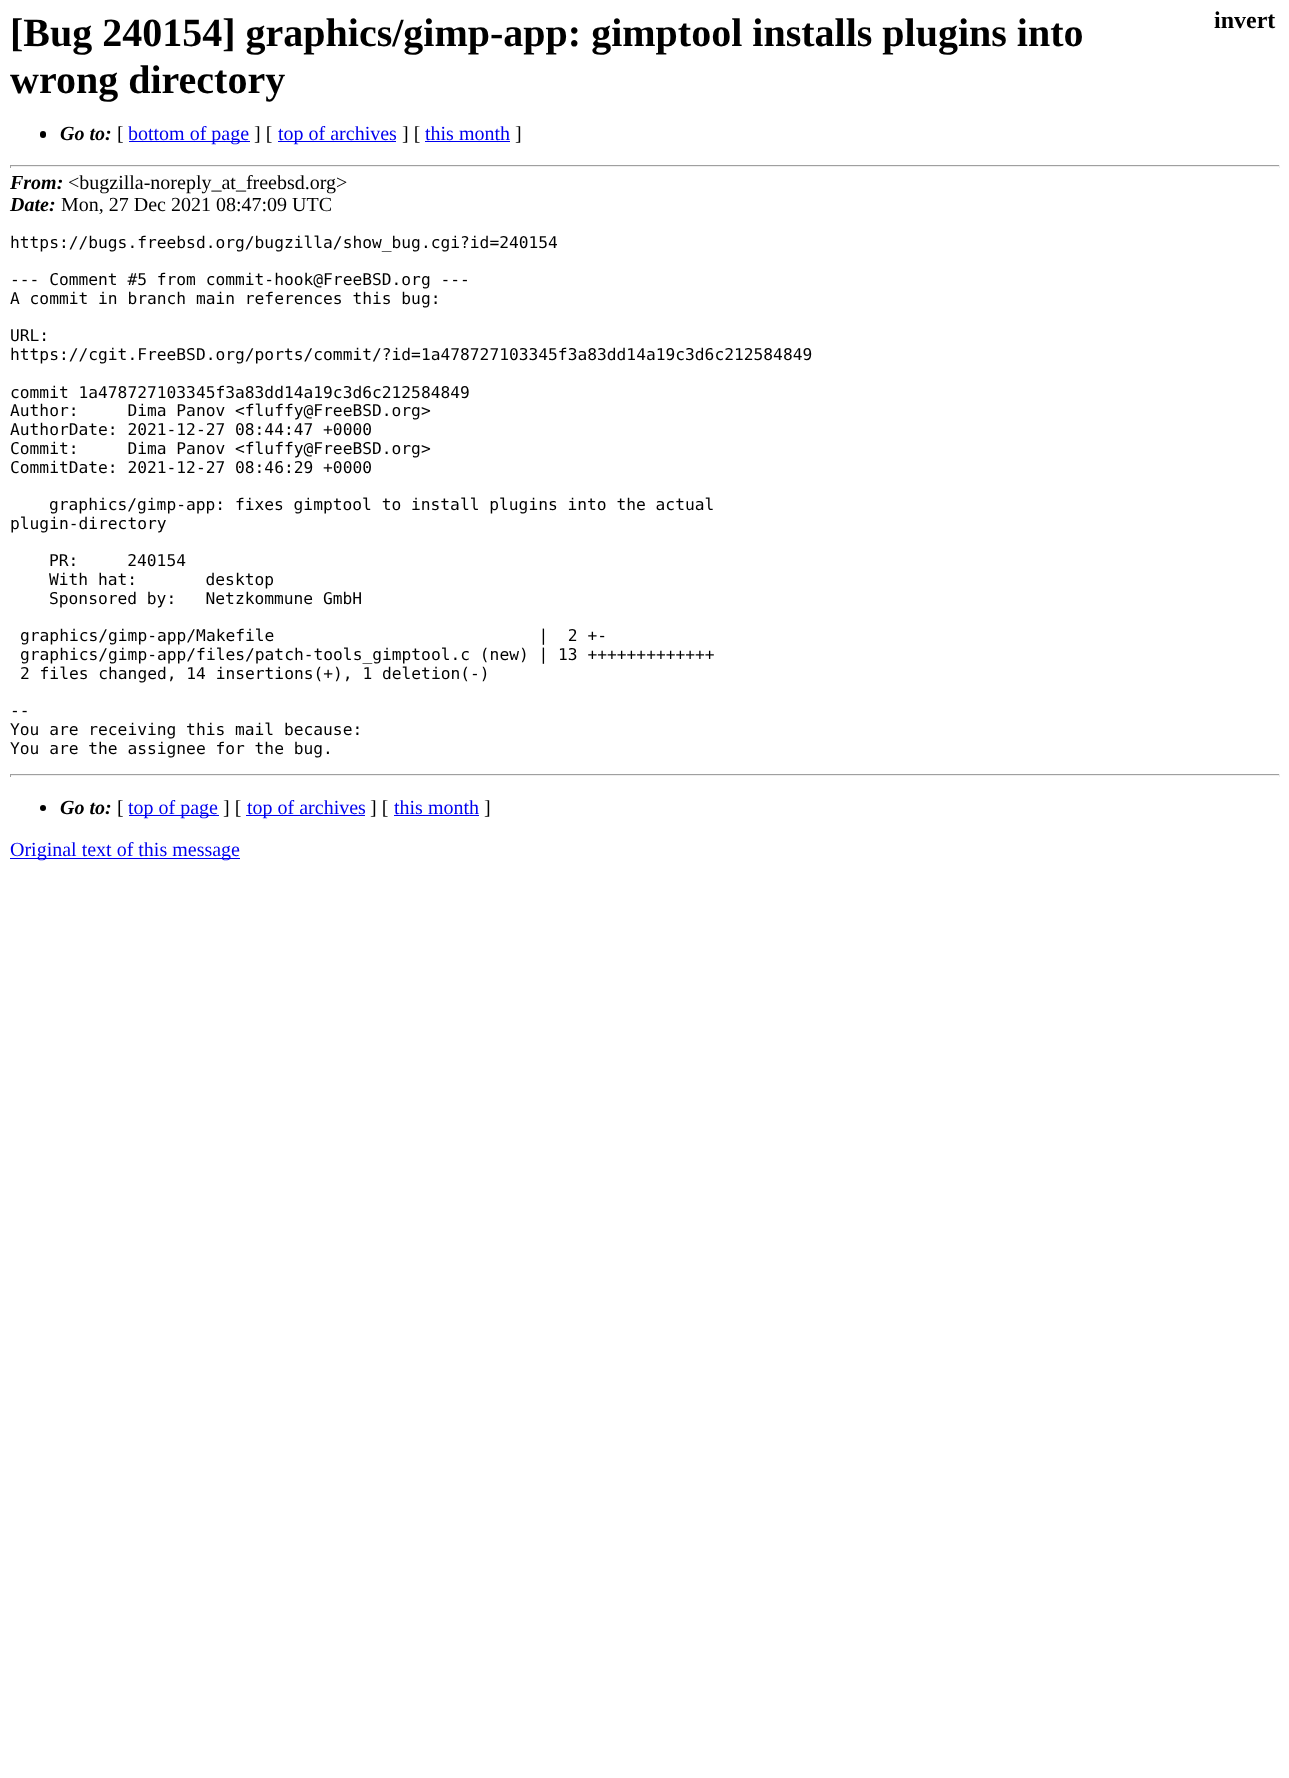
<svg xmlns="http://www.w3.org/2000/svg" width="1289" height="1778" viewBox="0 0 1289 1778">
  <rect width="100%" height="100%" fill="#ffffff"/>
  <text x="10" y="46" font-family="Liberation Serif" font-size="40" font-weight="bold" fill="#000000">[Bug 240154] graphics/gimp-app: gimptool installs plugins into</text>
  <text x="10" y="93" font-family="Liberation Serif" font-size="40" font-weight="bold" fill="#000000">wrong directory</text>
  <rect x="40" y="131" width="6" height="7" rx="3" fill="#000000"/>
  <text x="60" y="140" font-family="Liberation Serif" font-size="20" font-weight="bold" font-style="italic" fill="#000000">Go to:</text>
  <text x="117" y="140" font-family="Liberation Serif" font-size="20" fill="#000000">[</text>
  <rect x="129" y="141" width="121" height="1" fill="#0000ee"/>
  <text x="128" y="140" font-family="Liberation Serif" font-size="20" fill="#0000ee">bottom of page</text>
  <text x="254" y="140" font-family="Liberation Serif" font-size="20" fill="#000000">] [</text>
  <rect x="278" y="141" width="118" height="1" fill="#0000ee"/>
  <text x="278" y="140" font-family="Liberation Serif" font-size="20" fill="#0000ee">top of archives</text>
  <text x="402" y="140" font-family="Liberation Serif" font-size="20" fill="#000000">] [</text>
  <text x="425" y="140" font-family="Liberation Serif" font-size="20" fill="#0000ee">this month</text>
  <rect x="425" y="141" width="85" height="1" fill="#0000ee"/>
  <text x="515" y="140" font-family="Liberation Serif" font-size="20" fill="#000000">]</text>
  <rect x="10" y="165" width="1270" height="1" fill="#9f9f9f"/>
  <rect x="1279" y="165" width="1" height="3" fill="#eeeeee"/>
  <rect x="10" y="166" width="1270" height="1" fill="#eeeeee"/>
  <rect x="10" y="165" width="1" height="3" fill="#9f9f9f"/>
  <text x="1214" y="28" font-family="Liberation Serif" font-size="24" font-weight="bold" fill="#000000">invert</text>
  <text x="10" y="189" font-family="Liberation Serif" font-size="20" font-weight="bold" font-style="italic" fill="#000000">From:</text>
  <text x="68" y="189" font-family="Liberation Serif" font-size="20" fill="#000000">&lt;bugzilla-noreply_at_freebsd.org&gt;</text>
  <text x="10" y="211" font-family="Liberation Serif" font-size="20" font-weight="bold" font-style="italic" fill="#000000">Date:</text>
  <text x="61" y="211" font-family="Liberation Serif" font-size="20" fill="#000000">Mon, 27 Dec 2021 08:47:09 UTC</text>
  <text x="10" y="248" font-family="DejaVu Sans Mono" font-size="16.25" fill="#000000">https://bugs.freebsd.org/bugzilla/show_bug.cgi?id=240154</text>
  <text x="10" y="285" font-family="DejaVu Sans Mono" font-size="16.25" fill="#000000">--- Comment #5 from commit-hook@FreeBSD.org ---</text>
  <text x="10" y="304" font-family="DejaVu Sans Mono" font-size="16.25" fill="#000000">A commit in branch main references this bug:</text>
  <text x="10" y="341" font-family="DejaVu Sans Mono" font-size="16.25" fill="#000000">URL:</text>
  <text x="10" y="360" font-family="DejaVu Sans Mono" font-size="16.25" fill="#000000">https://cgit.FreeBSD.org/ports/commit/?id=1a478727103345f3a83dd14a19c3d6c212584849</text>
  <text x="10" y="398" font-family="DejaVu Sans Mono" font-size="16.25" fill="#000000">commit 1a478727103345f3a83dd14a19c3d6c212584849</text>
  <text x="10" y="416" font-family="DejaVu Sans Mono" font-size="16.25" fill="#000000" xml:space="preserve">Author:     Dima Panov &lt;fluffy@FreeBSD.org&gt;</text>
  <text x="10" y="435" font-family="DejaVu Sans Mono" font-size="16.25" fill="#000000">AuthorDate: 2021-12-27 08:44:47 +0000</text>
  <text x="10" y="454" font-family="DejaVu Sans Mono" font-size="16.25" fill="#000000" xml:space="preserve">Commit:     Dima Panov &lt;fluffy@FreeBSD.org&gt;</text>
  <text x="10" y="473" font-family="DejaVu Sans Mono" font-size="16.25" fill="#000000">CommitDate: 2021-12-27 08:46:29 +0000</text>
  <text x="49" y="510" font-family="DejaVu Sans Mono" font-size="16.25" fill="#000000">graphics/gimp-app: fixes gimptool to install plugins into the actual</text>
  <text x="10" y="529" font-family="DejaVu Sans Mono" font-size="16.25" fill="#000000">plugin-directory</text>
  <text x="49" y="566" font-family="DejaVu Sans Mono" font-size="16.25" fill="#000000" xml:space="preserve">PR:     240154</text>
  <text x="49" y="585" font-family="DejaVu Sans Mono" font-size="16.25" fill="#000000" xml:space="preserve">With hat:       desktop</text>
  <text x="49" y="604" font-family="DejaVu Sans Mono" font-size="16.25" fill="#000000" xml:space="preserve">Sponsored by:   Netzkommune GmbH</text>
  <text x="20" y="641" font-family="DejaVu Sans Mono" font-size="16.25" fill="#000000" xml:space="preserve">graphics/gimp-app/Makefile                           |  2 +-</text>
  <text x="20" y="660" font-family="DejaVu Sans Mono" font-size="16.25" fill="#000000">graphics/gimp-app/files/patch-tools_gimptool.c (new) | 13 +++++++++++++</text>
  <text x="20" y="679" font-family="DejaVu Sans Mono" font-size="16.25" fill="#000000">2 files changed, 14 insertions(+), 1 deletion(-)</text>
  <text x="10" y="716" font-family="DejaVu Sans Mono" font-size="16.25" fill="#000000">--</text>
  <text x="10" y="735" font-family="DejaVu Sans Mono" font-size="16.25" fill="#000000">You are receiving this mail because:</text>
  <text x="10" y="754" font-family="DejaVu Sans Mono" font-size="16.25" fill="#000000">You are the assignee for the bug.</text>
  <rect x="10" y="774" width="1270" height="1" fill="#9f9f9f"/>
  <rect x="1279" y="774" width="1" height="3" fill="#eeeeee"/>
  <rect x="10" y="775" width="1270" height="1" fill="#eeeeee"/>
  <rect x="10" y="774" width="1" height="3" fill="#9f9f9f"/>
  <circle cx="43" cy="808" r="3" fill="#000000"/>
  <text x="60" y="814" font-family="Liberation Serif" font-size="20" font-weight="bold" font-style="italic" fill="#000000">Go to:</text>
  <text x="117" y="814" font-family="Liberation Serif" font-size="20" fill="#000000">[</text>
  <rect x="129" y="815" width="90" height="1" fill="#0000ee"/>
  <text x="128" y="814" font-family="Liberation Serif" font-size="20" fill="#0000ee">top of page</text>
  <text x="223" y="814" font-family="Liberation Serif" font-size="20" fill="#000000">] [</text>
  <rect x="246" y="815" width="119" height="1" fill="#0000ee"/>
  <text x="247" y="814" font-family="Liberation Serif" font-size="20" fill="#0000ee">top of archives</text>
  <text x="370" y="814" font-family="Liberation Serif" font-size="20" fill="#000000">] [</text>
  <text x="394" y="814" font-family="Liberation Serif" font-size="20" fill="#0000ee">this month</text>
  <rect x="394" y="815" width="85" height="1" fill="#0000ee"/>
  <text x="484" y="814" font-family="Liberation Serif" font-size="20" fill="#000000">]</text>
  <rect x="10" y="858" width="230" height="1" fill="#0000ee"/>
  <text x="10" y="856" font-family="Liberation Serif" font-size="20" fill="#0000ee">Original text of this message</text>
</svg>
